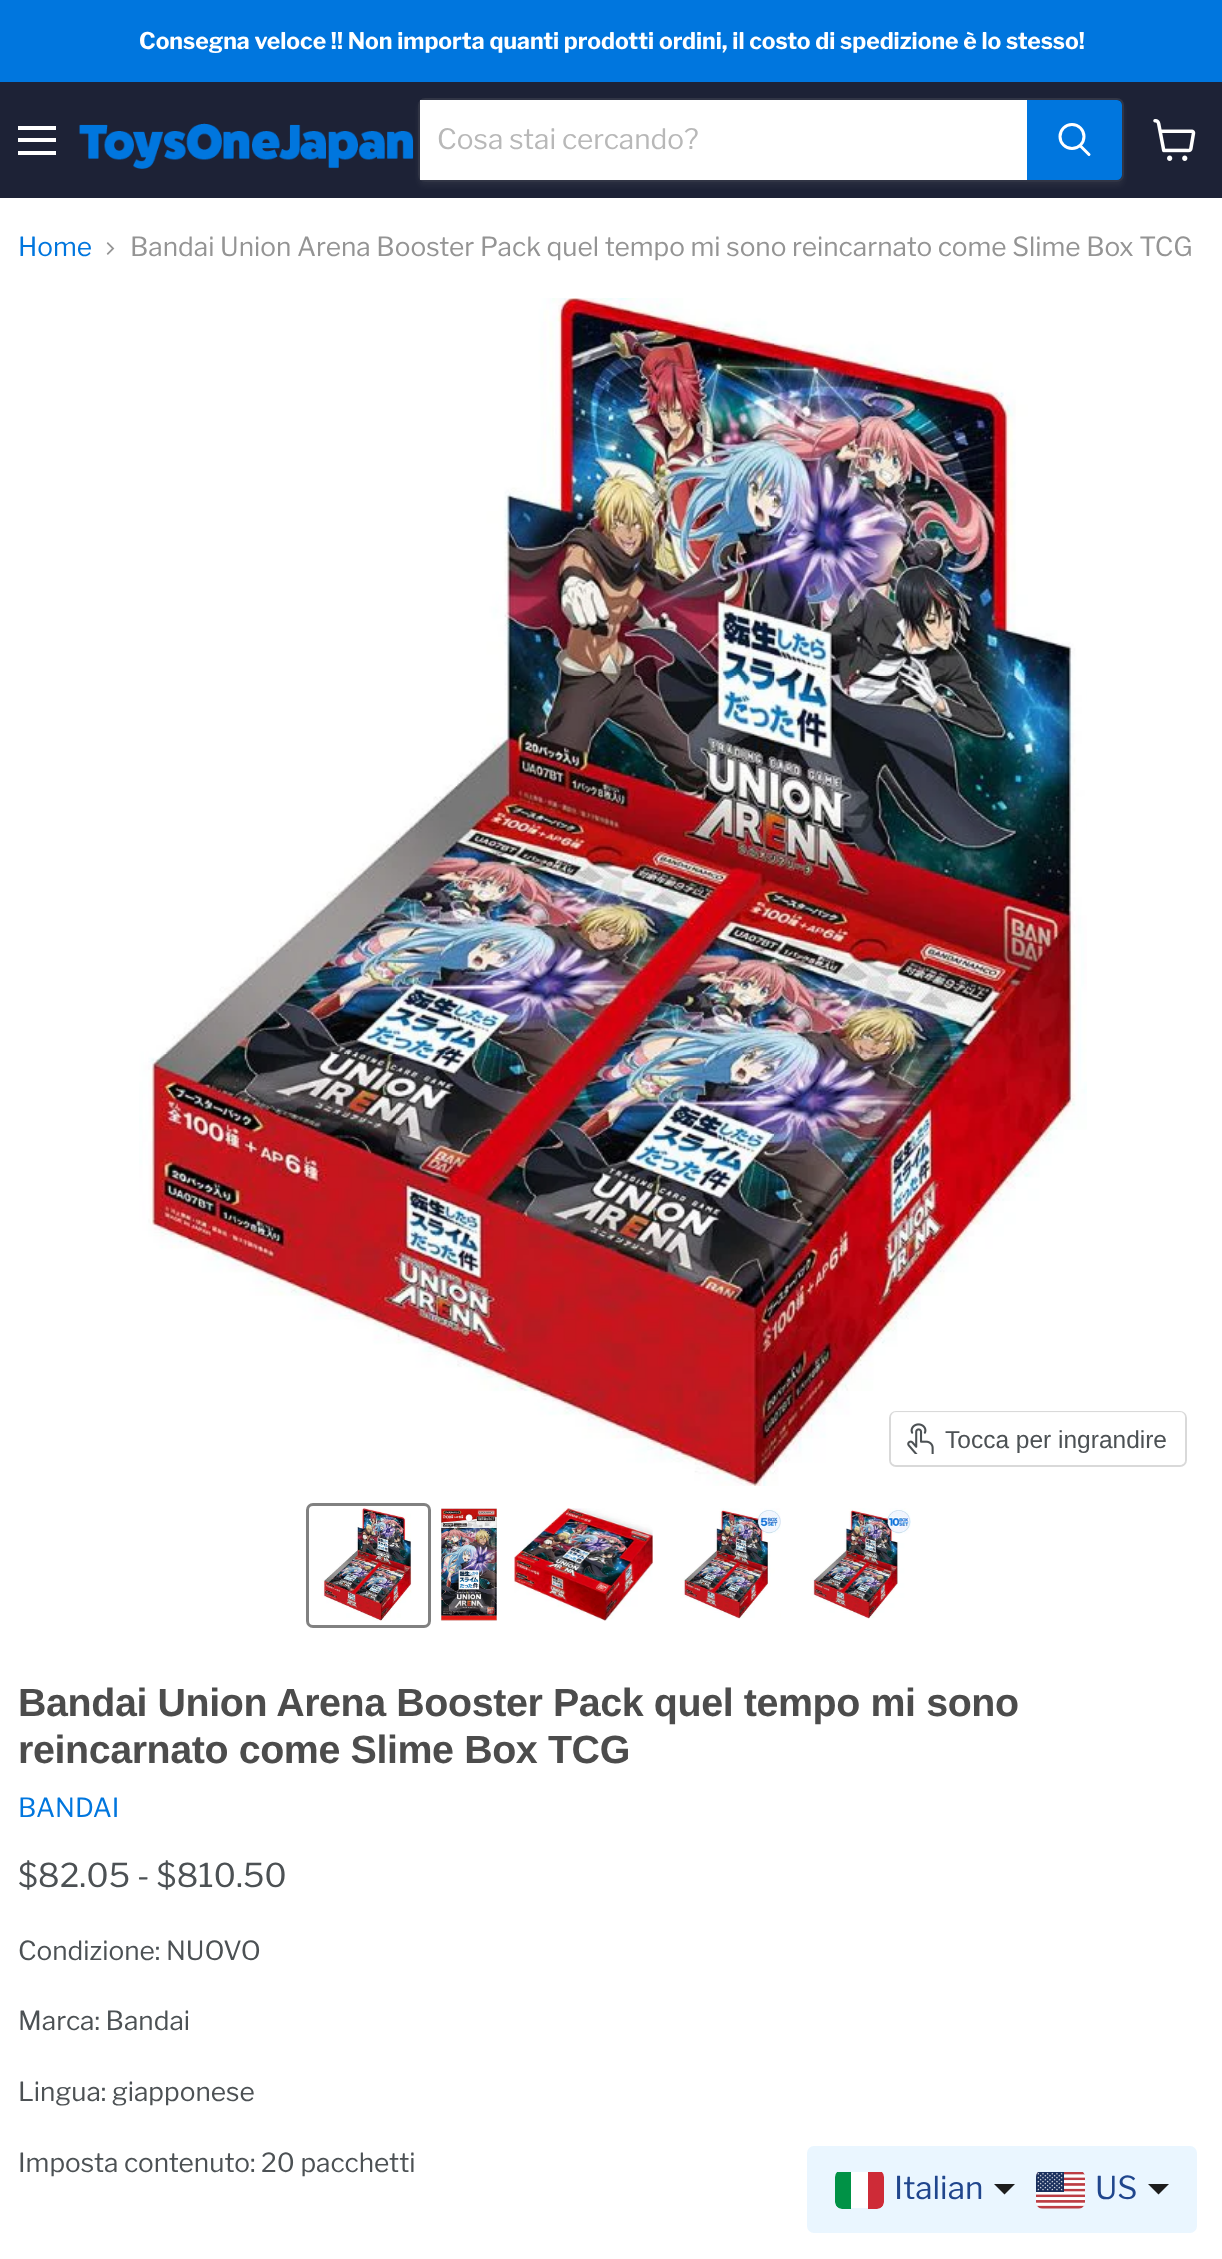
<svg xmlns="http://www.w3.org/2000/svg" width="1222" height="2259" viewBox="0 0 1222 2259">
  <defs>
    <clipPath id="clip1"><path d="M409 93H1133V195H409ZM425 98H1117C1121 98 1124 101 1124 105V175C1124 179 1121 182 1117 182H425C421 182 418 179 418 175V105C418 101 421 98 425 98Z" clip-rule="evenodd"/></clipPath>
    <filter id="blur1" x="-50%" y="-200%" width="200%" height="500%"><feGaussianBlur stdDeviation="2.5"/></filter>
    <clipPath id="clip2"><rect x="835" y="2170" width="49" height="39" rx="7"/></clipPath>
  </defs>
  <rect width="100%" height="100%" fill="#ffffff"/>
  <rect x="0" y="0" width="1222" height="82" fill="#0076de"/>
  <text x="139" y="49" font-family="Libre Franklin" font-size="22.95" font-weight="bold" fill="#ffffff">Consegna veloce !! Non importa quanti prodotti ordini, il costo di spedizione è lo stesso!</text>
  <rect x="0" y="82" width="1222" height="116" fill="#1d2236"/>
  <rect x="18" y="126" width="38" height="4" fill="#ffffff"/>
  <rect x="18" y="138" width="38" height="4" fill="#ffffff"/>
  <rect x="18" y="151" width="38" height="4" fill="#ffffff"/>
  <image x="79" y="123" width="335" height="46" href="img1.png"/>
  <g clip-path="url(#clip1)">
    <rect x="418" y="102" width="706" height="84" rx="7" fill="#808080" fill-opacity="0.11" filter="url(#blur1)"/>
  </g>
  <rect x="419" y="99" width="704" height="82" rx="6" fill="none" stroke="#808080" stroke-opacity="0.2" stroke-width="2"/>
  <rect x="420" y="100" width="607" height="80" fill="#ffffff"/>
  <text x="437" y="149" font-family="Libre Franklin" font-size="28" fill="#b8b8b8">Cosa stai cercando?</text>
  <path d="M1028 101H1117C1119 101 1121 103 1121 105V175C1121 177 1119 179 1117 179H1028Z" fill="#0076de" stroke="#0076de" stroke-width="2"/>
  <path d="M1089 154.5L1080.5 146" fill="none" stroke="#ffffff" stroke-width="3" stroke-linecap="round"/>
  <circle cx="1072" cy="136.5" r="12" fill="none" stroke="#ffffff" stroke-width="3"/>
  <image x="1153" y="119" width="43" height="42" href="img2.png"/>
  <text x="18" y="256" font-family="Libre Franklin" font-size="26.25" fill="#0076de">Home</text>
  <image x="106" y="242" width="9" height="13" href="img3.png"/>
  <text x="130" y="256" font-family="Libre Franklin" font-size="26.25" fill="#949494">Bandai Union Arena Booster Pack quel tempo mi sono reincarnato come Slime Box TCG</text>
  <image x="139" y="298" width="948" height="1188" href="img4.png"/>
  <rect x="890" y="1412" width="296" height="54" rx="6" fill="none" stroke="#d9d9d9" stroke-width="2"/>
  <rect x="891" y="1412" width="294" height="53" rx="5" fill="#ffffff" fill-opacity="0.9"/>
  <image x="907" y="1423" width="27" height="31" href="img5.png"/>
  <text x="945" y="1448" font-family="Liberation Sans" font-size="24.5" fill="#4c5154">Tocca per ingrandire</text>
  <rect x="307.5" y="1504.5" width="122" height="122" rx="5.5" fill="none" stroke="#818181" stroke-width="3"/>
  <image x="321" y="1508" width="91" height="113" href="img6.png"/>
  <image x="441" y="1508" width="56" height="113" href="img7.png"/>
  <image x="514" y="1508" width="139" height="113" href="img8.png"/>
  <image x="680" y="1508" width="101" height="111" href="img9.png"/>
  <image x="810" y="1508" width="101" height="111" href="img10.png"/>
  <text x="18" y="1716" font-family="Arimo" font-size="39.4" font-weight="bold" letter-spacing="-0.4" fill="#4c4c4c">Bandai Union Arena Booster Pack quel tempo mi sono</text>
  <text x="18" y="1763" font-family="Arimo" font-size="39.4" font-weight="bold" letter-spacing="-0.4" fill="#4c4c4c">reincarnato come Slime Box TCG</text>
  <text x="18" y="1817" font-family="Libre Franklin" font-size="26.25" fill="#0076de">BANDAI</text>
  <text x="18" y="1887" font-family="Libre Franklin" font-size="32.75" fill="#4c5154">$82.05 - $810.50</text>
  <text x="18" y="1960" font-family="Libre Franklin" font-size="26.25" fill="#4c5154">Condizione: NUOVO</text>
  <text x="18" y="2030" font-family="Libre Franklin" font-size="26.25" fill="#4c5154">Marca: Bandai</text>
  <text x="18" y="2101" font-family="Libre Franklin" font-size="26.25" fill="#4c5154">Lingua: giapponese</text>
  <text x="18" y="2172" font-family="Libre Franklin" font-size="26.25" fill="#4c5154">Imposta contenuto: 20 pacchetti</text>
  <rect x="807" y="2146" width="390" height="87" rx="7" fill="#eaf6ff"/>
  <g clip-path="url(#clip2)">
    <rect x="835" y="2172" width="49" height="36" fill="#ffffff"/>
    <path d="M835 2172H851V2209H842C838 2209 835 2206 835 2202Z" fill="#009246"/>
    <path d="M868 2172H884V2202C884 2206 881 2209 877 2209H868Z" fill="#ce2b37"/>
  </g>
  <text x="894" y="2199" font-family="Libre Franklin" font-size="31.5" fill="#20468d">Italian</text>
  <path d="M994 2184H1015L1004.5 2194.5Z" fill="#1d1d1d"/>
  <image x="1036" y="2172" width="49" height="37" href="img11.png"/>
  <text x="1095" y="2199" font-family="Libre Franklin" font-size="31.5" fill="#20468d">US</text>
  <path d="M1148 2184H1169L1158.5 2194.5Z" fill="#1d1d1d"/>
</svg>
